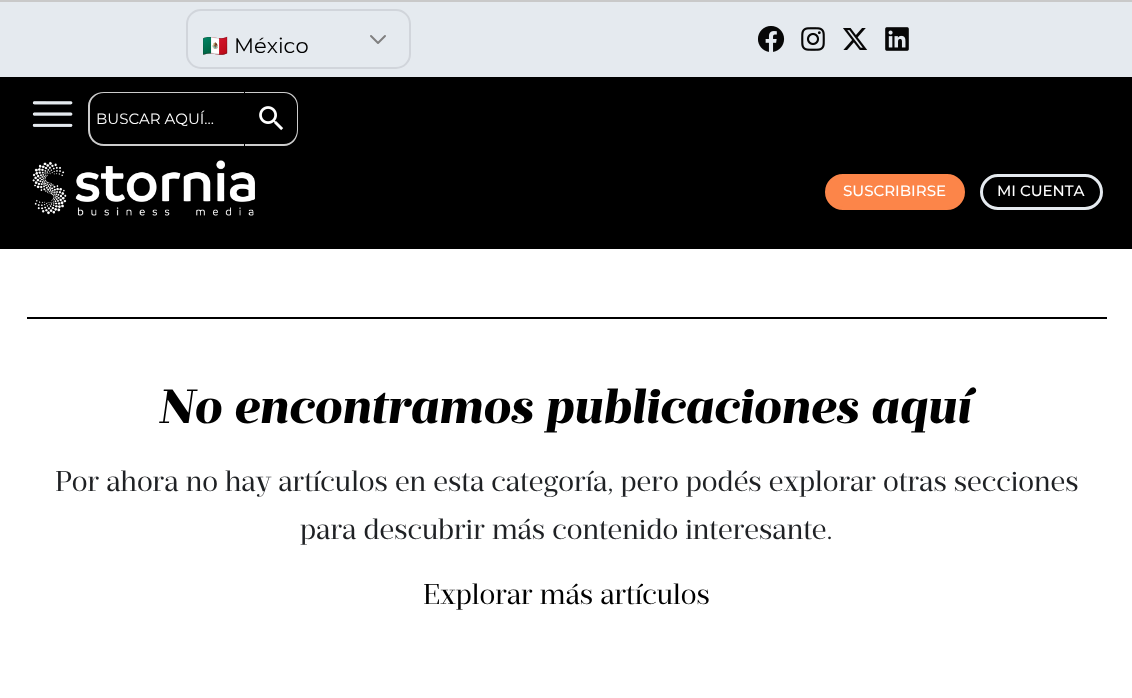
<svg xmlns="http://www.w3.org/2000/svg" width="1132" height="698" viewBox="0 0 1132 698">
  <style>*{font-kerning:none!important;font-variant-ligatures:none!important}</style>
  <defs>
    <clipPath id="clip1"><rect x="203" y="26" width="192" height="39"/></clipPath>
    <clipPath id="clip2"><rect x="245" y="92" width="54" height="54"/></clipPath>
  </defs>
  <rect width="100%" height="100%" fill="#ffffff"/>
  <rect x="0" y="2" width="1132" height="75" fill="#e5eaef"/>
  <rect x="0" y="0" width="1132" height="2" fill="#c9c9c9"/>
  <path d="M385 36L378 43L371 36" fill="none" stroke="#808080" stroke-width="2" stroke-linecap="round" stroke-linejoin="round"/>
  <rect x="187" y="10" width="223" height="58" rx="14" fill="none" stroke="#d1d5db" stroke-width="2"/>
  <g clip-path="url(#clip1)">
    <text x="202" y="53" font-family="Noto Color Emoji" font-size="21" fill="#000000">🇲🇽</text>
  </g>
  <text x="234" y="53" font-family="Montserrat" font-size="21" fill="#000000">México</text>
  <image x="758" y="26" width="27" height="26" href="img1.png"/>
  <image x="801" y="27" width="24" height="24" href="img2.png"/>
  <image x="843" y="28" width="25" height="22" href="img3.png"/>
  <image x="885" y="27" width="24" height="24" href="img4.png"/>
  <rect x="0" y="77" width="1132" height="172" fill="#000000"/>
  <image x="32" y="101" width="41" height="26" href="img5.png"/>
  <path d="M104 92H244V146H104C95 146 88 139 88 130V106C88 98 95 92 104 92ZM104 93H244V144H104C96 144 90 138 90 130V106C90 99 96 93 104 93Z" fill="#cccccc" fill-rule="evenodd"/>
  <text x="96" y="124" font-family="Montserrat" font-size="15" fill="#ffffff">BUSCAR AQUÍ...</text>
  <g clip-path="url(#clip2)">
    <path d="M244 92H284C292 92 298 98 298 106V130C298 139 292 146 284 146H244ZM244 93H284C291 93 297 99 297 106V130C297 138 291 144 284 144H244Z" fill="#cccccc" fill-rule="evenodd"/>
  </g>
  <image x="259" y="106" width="25" height="25" href="img6.png"/>
  <image x="32" y="160" width="223" height="56" href="img7.png"/>
  <rect x="826.5" y="175.5" width="137" height="33" rx="16.5" fill="#fc8549" stroke="#fc8549" stroke-width="3"/>
  <text x="843" y="196" font-family="Montserrat" font-size="15" font-weight="500" fill="#ffffff">SUSCRIBIRSE</text>
  <rect x="981.5" y="175.5" width="120" height="33" rx="16.5" fill="none" stroke="#e5eaef" stroke-width="3"/>
  <text x="997" y="196" font-family="Montserrat" font-size="15" font-weight="500" fill="#ffffff">MI CUENTA</text>
  <rect x="27" y="317" width="1080" height="2" fill="#000000"/>
  <text x="160" y="423" font-family="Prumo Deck" font-size="48" font-weight="800" font-style="italic" fill="#000000">No encontramos publicaciones aquí</text>
  <text x="55" y="491" font-family="Prumo Deck" font-size="28.5" fill="#1f2124">Por ahora no hay artículos en esta categoría, pero podés explorar otras secciones</text>
  <text x="300" y="539" font-family="Prumo Deck" font-size="28.5" fill="#1f2124">para descubrir más contenido interesante.</text>
  <text x="423" y="604" font-family="Prumo Deck" font-size="28.5" fill="#000000">Explorar más artículos</text>
</svg>
